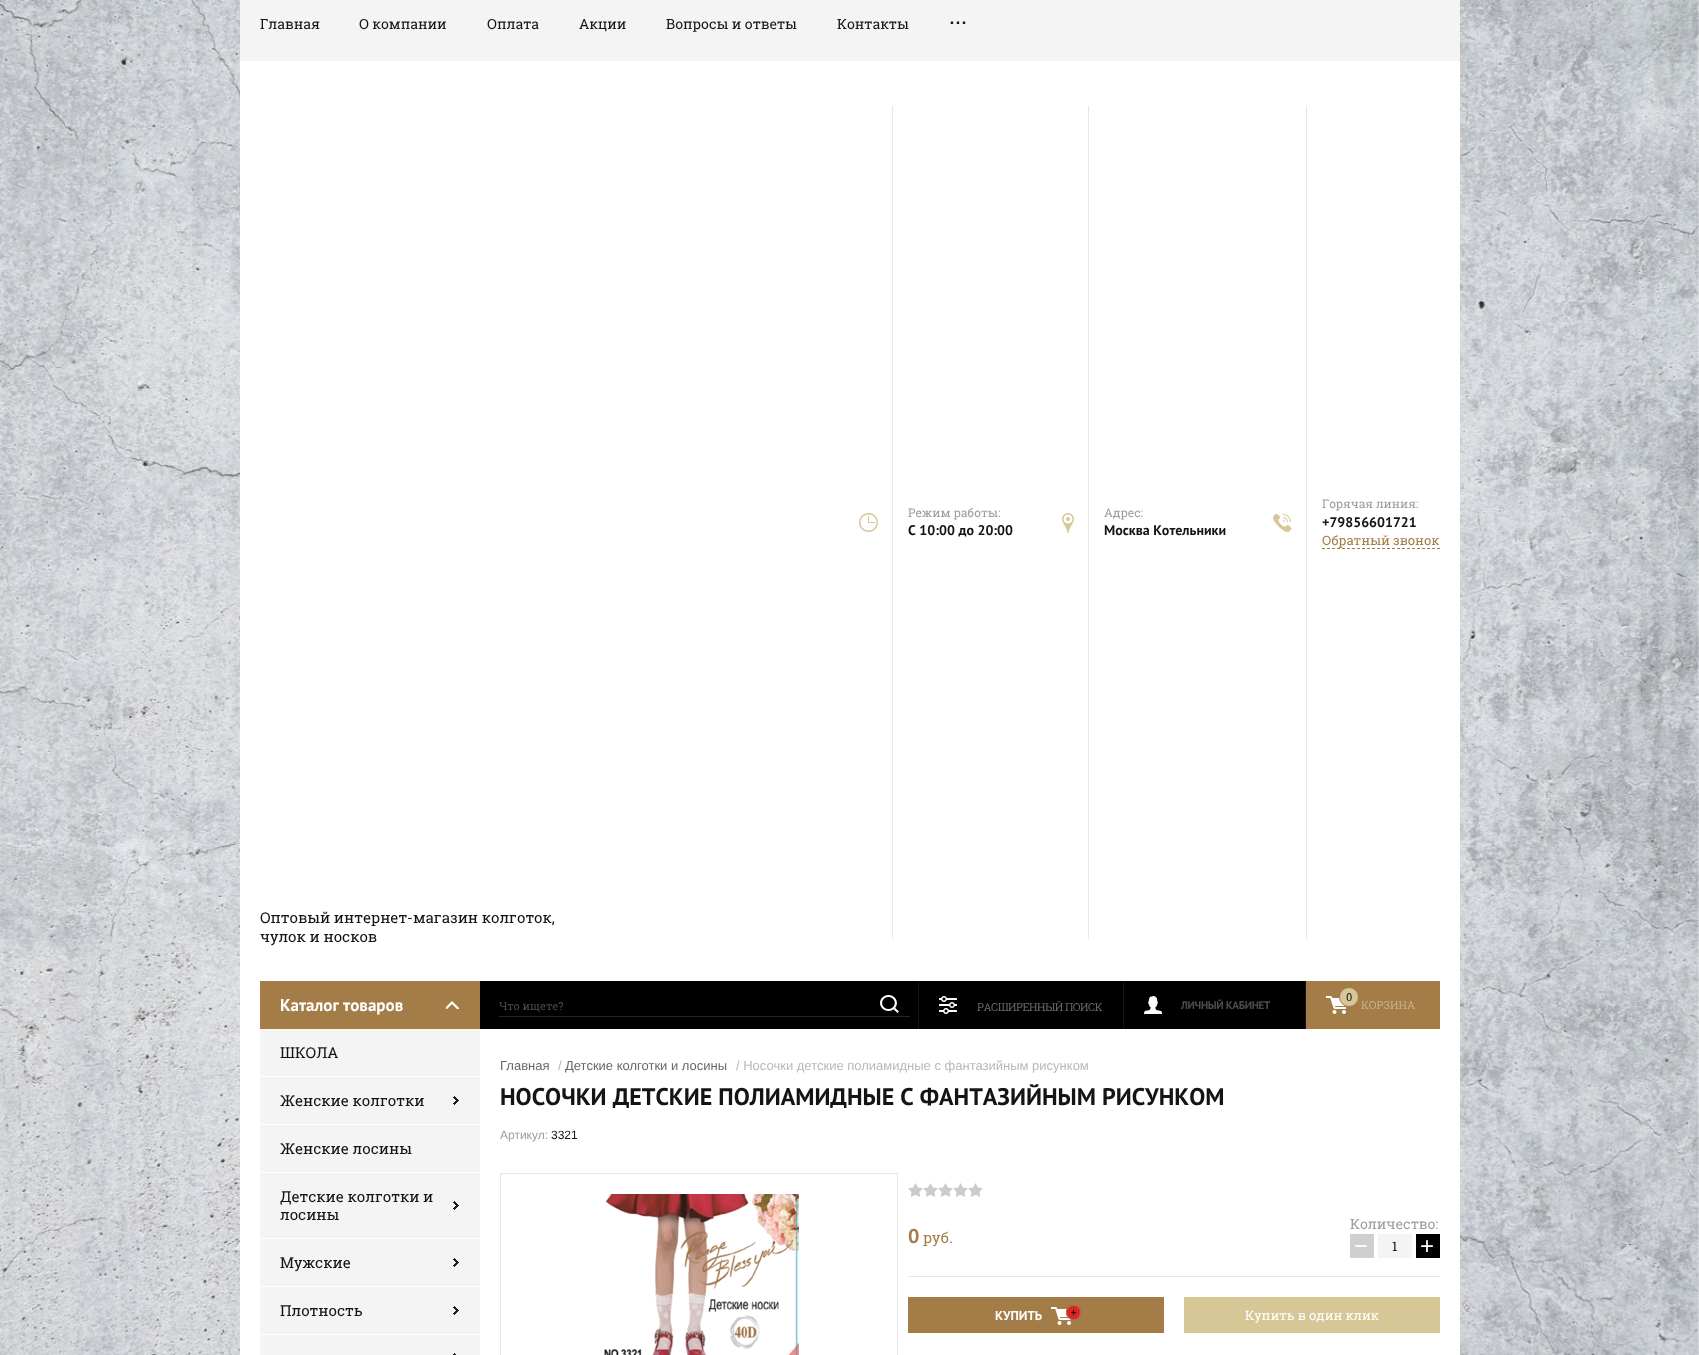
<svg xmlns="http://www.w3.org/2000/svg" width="1699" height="1355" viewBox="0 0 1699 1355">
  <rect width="100%" height="100%" fill="#ffffff"/>
  <image x="0" y="0" width="1699" height="1355" href="img1.png"/>
  <rect x="240" y="61" width="1220" height="1294" fill="#ffffff"/>
  <rect x="240" y="0" width="1220" height="61" fill="#f4f4f4"/>
  <text x="260" y="29" font-family="Roboto Slab" font-size="14" fill="#141414">Главная</text>
  <text x="359" y="29" font-family="Roboto Slab" font-size="14" fill="#141414">О компании</text>
  <text x="487" y="29" font-family="Roboto Slab" font-size="14" fill="#141414">Оплата</text>
  <text x="579" y="29" font-family="Roboto Slab" font-size="14" fill="#141414">Акции</text>
  <text x="666" y="29" font-family="Roboto Slab" font-size="14" fill="#141414">Вопросы и ответы</text>
  <text x="837" y="29" font-family="Roboto Slab" font-size="14" fill="#141414">Контакты</text>
  <text x="949" y="24" font-family="Roboto Slab" font-size="25" fill="#141414">...</text>
  <rect x="892" y="106" width="1" height="833" fill="#e7e7e7"/>
  <image x="859" y="513" width="19" height="19" href="img2.png"/>
  <text x="908" y="517" font-family="Roboto Slab" font-size="12" fill="#9c9c9c">Режим работы:</text>
  <text x="908" y="535" font-family="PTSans" font-size="14" font-weight="bold" fill="#141414">C 10:00 до 20:00</text>
  <rect x="1088" y="106" width="1" height="833" fill="#e7e7e7"/>
  <image x="1062" y="513" width="12" height="20" href="img3.png"/>
  <text x="1104" y="517" font-family="Roboto Slab" font-size="12" fill="#9c9c9c">Адрес:</text>
  <text x="1104" y="535" font-family="PTSans" font-size="14" font-weight="bold" fill="#141414">Москва Котельники</text>
  <rect x="1306" y="106" width="1" height="833" fill="#e7e7e7"/>
  <text x="1322" y="508" font-family="Roboto Slab" font-size="12" fill="#9c9c9c">Горячая линия:</text>
  <image x="1273" y="514" width="19" height="18" href="img4.png"/>
  <text x="1322" y="527" font-family="PTSans" font-size="14" font-weight="bold" fill="#141414">+79856601721</text>
  <path d="M1322 548.5H1440" fill="none" stroke="#a47c48" stroke-dasharray="3 2"/>
  <text x="1322" y="545" font-family="Roboto Slab" font-size="13" fill="#a47c48">Обратный звонок</text>
  <text x="260" y="923" font-family="Roboto Slab" font-size="15" fill="#141414">Оптовый интернет-магазин колготок,</text>
  <text x="260" y="942" font-family="Roboto Slab" font-size="15" fill="#141414">чулок и носков</text>
  <rect x="480" y="981" width="825" height="48" fill="#000000"/>
  <rect x="260" y="981" width="220" height="48" fill="#a47c48"/>
  <text x="280" y="1011" font-family="PTSans" font-size="17" font-weight="bold" fill="#ffffff">Каталог товаров</text>
  <image x="446" y="1001" width="13" height="8" href="img5.png"/>
  <rect x="499" y="1016" width="411" height="1" fill="#262626"/>
  <text x="499" y="1010" font-family="Roboto Slab" font-size="11" fill="#4d4d4d">Что ищете?</text>
  <image x="880" y="995" width="19" height="18" href="img6.png"/>
  <image x="939" y="996" width="18" height="18" href="img7.png"/>
  <rect x="918" y="981" width="1" height="48" fill="#141414"/>
  <text x="977" y="1011" font-family="Roboto Slab" font-size="11" letter-spacing="-0.5" fill="#676767">РАСШИРЕННЫЙ ПОИСК</text>
  <image x="1144" y="996" width="18" height="18" href="img8.png"/>
  <rect x="1305" y="981" width="1" height="48" fill="#141414"/>
  <rect x="1123" y="981" width="1" height="48" fill="#141414"/>
  <text x="1181" y="1009" font-family="PTSans" font-size="11" font-weight="bold" letter-spacing="-0.3" fill="#4d4d4d">ЛИЧНЫЙ КАБИНЕТ</text>
  <rect x="1306" y="981" width="134" height="48" fill="#a47c48"/>
  <image x="1326" y="996" width="20" height="18" href="img9.png"/>
  <circle cx="1349" cy="997" r="9.5" fill="#d7c797" stroke="#a47c48"/>
  <text x="1346" y="1001" font-family="Roboto Slab" font-size="11" fill="#141414">0</text>
  <text x="1361" y="1009" font-family="Roboto Slab" font-size="11" fill="#c8b091">КОРЗИНА</text>
  <rect x="260" y="1029" width="220" height="47" fill="#f4f4f4"/>
  <text x="280" y="1058" font-family="Roboto Slab" font-size="15" fill="#141414">ШКОЛА</text>
  <rect x="260" y="1077" width="220" height="47" fill="#f4f4f4"/>
  <text x="280" y="1106" font-family="Roboto Slab" font-size="15" fill="#141414">Женские колготки</text>
  <image x="453" y="1096" width="6" height="9" href="img10.png"/>
  <rect x="260" y="1125" width="220" height="47" fill="#f4f4f4"/>
  <text x="280" y="1154" font-family="Roboto Slab" font-size="15" fill="#141414">Женские лосины</text>
  <rect x="260" y="1173" width="220" height="65" fill="#f4f4f4"/>
  <text x="280" y="1202" font-family="Roboto Slab" font-size="15" fill="#141414">Детские колготки и</text>
  <image x="453" y="1201" width="6" height="9" href="img10.png"/>
  <text x="280" y="1220" font-family="Roboto Slab" font-size="15" fill="#141414">лосины</text>
  <rect x="260" y="1239" width="220" height="47" fill="#f4f4f4"/>
  <text x="280" y="1268" font-family="Roboto Slab" font-size="15" fill="#141414">Мужские</text>
  <image x="453" y="1258" width="6" height="9" href="img10.png"/>
  <rect x="260" y="1287" width="220" height="47" fill="#f4f4f4"/>
  <text x="280" y="1316" font-family="Roboto Slab" font-size="15" fill="#141414">Плотность</text>
  <image x="453" y="1306" width="6" height="9" href="img10.png"/>
  <rect x="260" y="1335" width="220" height="20" fill="#f4f4f4"/>
  <image x="453" y="1353" width="3" height="2" href="img11.png"/>
  <text x="500" y="1070" font-family="Liberation Sans" font-size="13" fill="#676767">Главная</text>
  <text x="558" y="1070" font-family="Liberation Sans" font-size="13" fill="#b8b8b8">/</text>
  <text x="565" y="1070" font-family="Liberation Sans" font-size="13" fill="#676767">Детские колготки и лосины</text>
  <text x="736" y="1070" font-family="Liberation Sans" font-size="13" fill="#b8b8b8">/ Носочки детские полиамидные с фантазийным рисунком</text>
  <text x="500" y="1105" font-family="PTSans" font-size="24" font-weight="bold" fill="#141414">НОСОЧКИ ДЕТСКИЕ ПОЛИАМИДНЫЕ С ФАНТАЗИЙНЫМ РИСУНКОМ</text>
  <text x="500" y="1139" font-family="Liberation Sans" font-size="12" fill="#9c9c9c">Артикул:</text>
  <text x="551" y="1139" font-family="Liberation Sans" font-size="12" fill="#141414">3321</text>
  <rect x="500.5" y="1173.5" width="397" height="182" fill="none" stroke="#e5e5e5"/>
  <image x="604" y="1194" width="195" height="161" href="img12.png"/>
  <image x="908" y="1183" width="75" height="14" href="img13.png"/>
  <text x="908" y="1243" font-family="PTSans" font-size="20" font-weight="bold" fill="#a47c48">0</text>
  <text x="923" y="1243" font-family="Roboto Slab" font-size="15" fill="#a47c48">руб.</text>
  <text x="1350" y="1229" font-family="Roboto Slab" font-size="14" fill="#9c9c9c">Количество:</text>
  <rect x="1350" y="1234" width="24" height="24" fill="#cfcfcf"/>
  <text x="1354" y="1254" font-family="Liberation Sans" font-size="24" fill="#ffffff">−</text>
  <rect x="1378" y="1234" width="34" height="24" fill="#f4f4f4"/>
  <text x="1392" y="1251" font-family="Roboto Slab" font-size="13" fill="#141414">1</text>
  <rect x="1416" y="1234" width="24" height="24" fill="#000000"/>
  <text x="1420" y="1254" font-family="Liberation Sans" font-size="24" fill="#ffffff">+</text>
  <rect x="908" y="1276" width="532" height="1" fill="#e5e5e5"/>
  <rect x="908" y="1297" width="256" height="36" fill="#a47c48"/>
  <image x="1051" y="1307" width="20" height="18" href="img9.png"/>
  <text x="995" y="1320" font-family="PTSans" font-size="13" font-weight="bold" fill="#ffffff">КУПИТЬ</text>
  <circle cx="1073.5" cy="1312.5" r="7.5" fill="#dc2222"/>
  <image x="1071" y="1310" width="5" height="5" href="img14.png"/>
  <circle cx="1073.5" cy="1312.5" r="7" fill="none" stroke="#a47c48"/>
  <rect x="1184" y="1297" width="256" height="36" fill="#d7c797"/>
  <text x="1245" y="1320" font-family="Roboto Slab" font-size="13" fill="#ffffff">Купить в один клик</text>
</svg>
